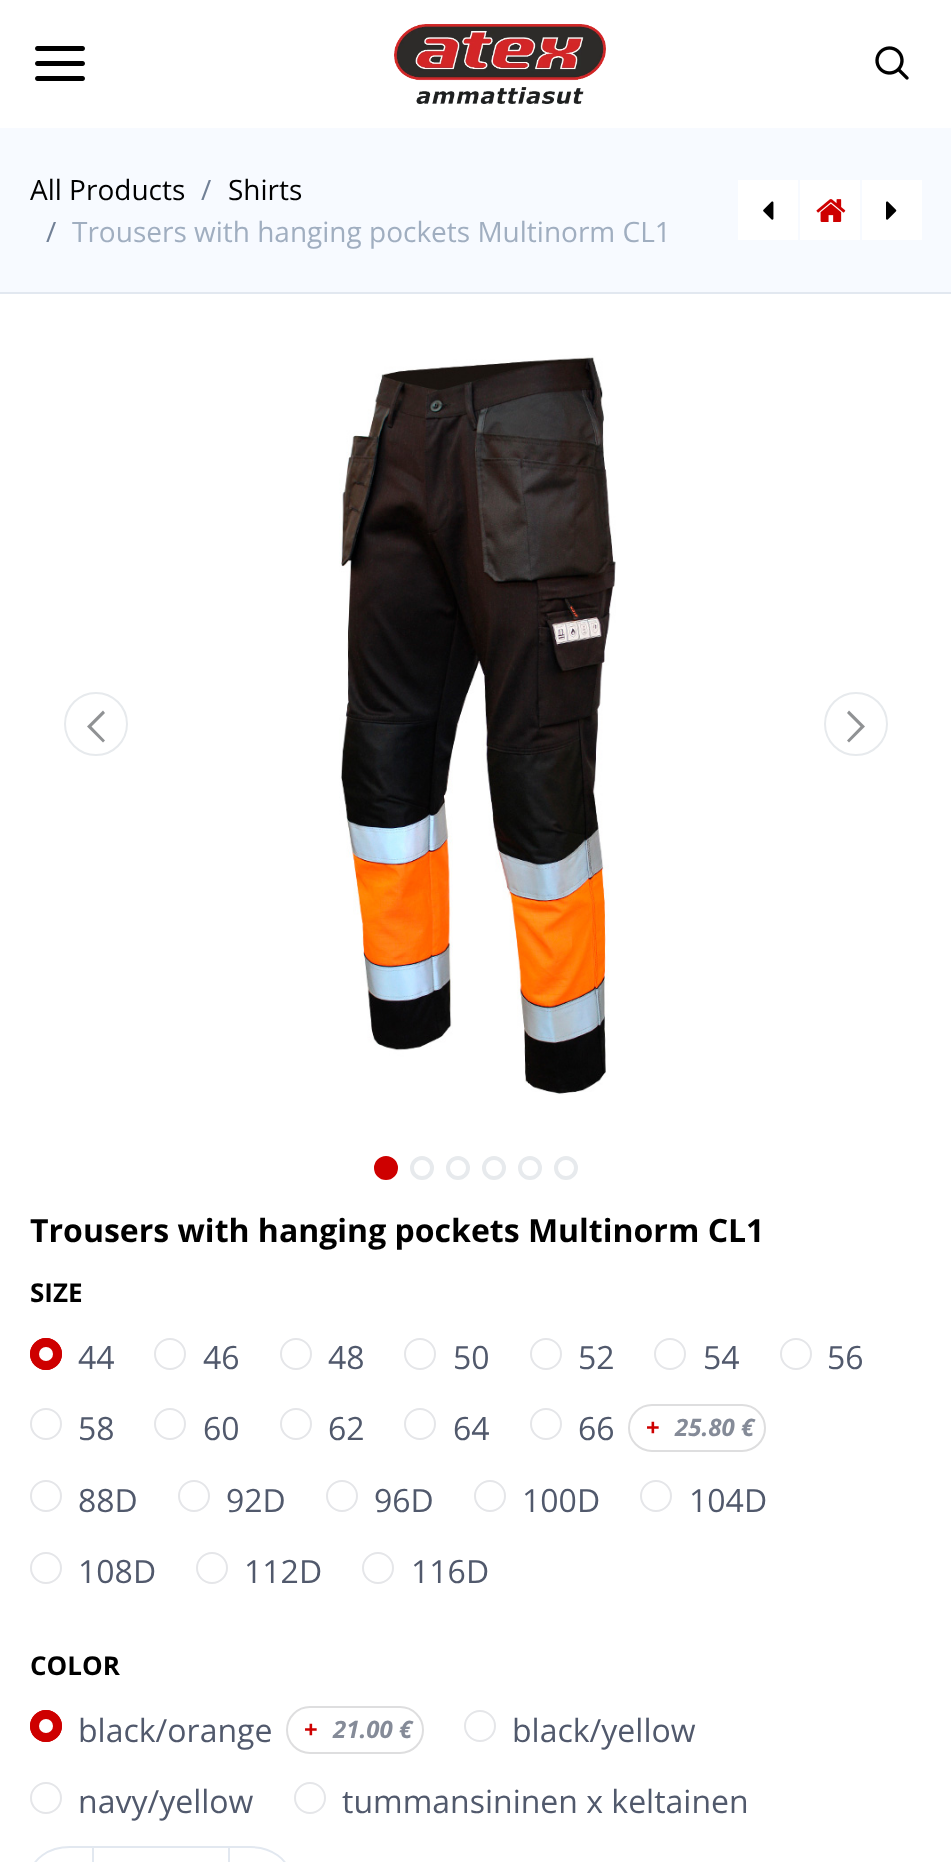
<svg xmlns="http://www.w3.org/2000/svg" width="951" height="1862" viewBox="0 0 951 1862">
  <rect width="100%" height="100%" fill="#ffffff"/>
  <image x="35" y="46" width="50" height="35" href="img1.png"/>
  <image x="394" y="24" width="212" height="80" href="img2.png"/>
  <image x="875" y="46" width="34" height="34" href="img3.png"/>
  <rect x="0" y="128" width="951" height="164" fill="#f7faff"/>
  <rect x="0" y="292" width="951" height="2" fill="#e2e8f0"/>
  <text x="30" y="200" font-family="Open Sans" font-size="28" fill="#000000">All Products</text>
  <text x="201" y="200" font-family="Open Sans" font-size="28" fill="#718096">/</text>
  <text x="228" y="200" font-family="Open Sans" font-size="28" fill="#000000">Shirts</text>
  <text x="46" y="242" font-family="Open Sans" font-size="28" fill="#718096">/</text>
  <text x="72" y="242" font-family="Open Sans" font-size="28" fill="#a0aec0">Trousers with hanging pockets Multinorm CL1</text>
  <rect x="738" y="180" width="60" height="60" fill="#ffffff"/>
  <image x="763" y="201" width="11" height="19" href="img4.png"/>
  <rect x="800" y="180" width="60" height="60" fill="#ffffff"/>
  <image x="816" y="199" width="30" height="23" href="img5.png"/>
  <rect x="862" y="180" width="60" height="60" fill="#ffffff"/>
  <image x="886" y="201" width="11" height="19" href="img6.png"/>
  <circle cx="96" cy="724" r="31" fill="none" stroke="#e7eaed" stroke-width="2"/>
  <path d="M87 726.5L103 710.5L105 713L91.5 726.5L105 740.5L103 742.5Z" fill="#909294"/>
  <image x="339" y="355" width="277" height="740" href="img7.png"/>
  <circle cx="856" cy="724" r="31" fill="none" stroke="#e7eaed" stroke-width="2"/>
  <path d="M865 726.5L849 742.5L847 740.5L860.5 726.5L847 713L849 710.5Z" fill="#909294"/>
  <circle cx="386" cy="1168" r="10" fill="#ce0000" stroke="#ce0000" stroke-width="4"/>
  <circle cx="422" cy="1168" r="10" fill="none" stroke="#e7eaed" stroke-width="4"/>
  <circle cx="458" cy="1168" r="10" fill="none" stroke="#e7eaed" stroke-width="4"/>
  <circle cx="494" cy="1168" r="10" fill="none" stroke="#e7eaed" stroke-width="4"/>
  <circle cx="530" cy="1168" r="10" fill="none" stroke="#e7eaed" stroke-width="4"/>
  <circle cx="566" cy="1168" r="10" fill="none" stroke="#e7eaed" stroke-width="4"/>
  <text x="30" y="1242" font-family="Open Sans" font-size="32" font-weight="bold" fill="#000000">Trousers with hanging pockets Multinorm CL1</text>
  <text x="30" y="1302" font-family="Open Sans" font-size="26" font-weight="bold" fill="#000000">SIZE</text>
  <circle cx="46" cy="1354" r="16" fill="#ce0000"/>
  <circle cx="46" cy="1354" r="7" fill="#ffffff"/>
  <circle cx="46" cy="1354" r="15" fill="none" stroke="#ce0000" stroke-width="2"/>
  <text x="78" y="1369" font-family="Open Sans" font-size="32" fill="#51596c">44</text>
  <circle cx="170" cy="1354" r="15" fill="none" stroke="#e5e6e9" stroke-width="2"/>
  <text x="203" y="1369" font-family="Open Sans" font-size="32" fill="#51596c">46</text>
  <circle cx="296" cy="1354" r="15" fill="none" stroke="#e5e6e9" stroke-width="2"/>
  <text x="328" y="1369" font-family="Open Sans" font-size="32" fill="#51596c">48</text>
  <circle cx="420" cy="1354" r="15" fill="none" stroke="#e5e6e9" stroke-width="2"/>
  <text x="453" y="1369" font-family="Open Sans" font-size="32" fill="#51596c">50</text>
  <circle cx="546" cy="1354" r="15" fill="none" stroke="#e5e6e9" stroke-width="2"/>
  <text x="578" y="1369" font-family="Open Sans" font-size="32" fill="#51596c">52</text>
  <circle cx="670" cy="1354" r="15" fill="none" stroke="#e5e6e9" stroke-width="2"/>
  <text x="703" y="1369" font-family="Open Sans" font-size="32" fill="#51596c">54</text>
  <circle cx="796" cy="1354" r="15" fill="none" stroke="#e5e6e9" stroke-width="2"/>
  <text x="827" y="1369" font-family="Open Sans" font-size="32" fill="#51596c">56</text>
  <circle cx="46" cy="1424" r="15" fill="none" stroke="#e5e6e9" stroke-width="2"/>
  <text x="78" y="1440" font-family="Open Sans" font-size="32" fill="#51596c">58</text>
  <circle cx="170" cy="1424" r="15" fill="none" stroke="#e5e6e9" stroke-width="2"/>
  <text x="203" y="1440" font-family="Open Sans" font-size="32" fill="#51596c">60</text>
  <circle cx="296" cy="1424" r="15" fill="none" stroke="#e5e6e9" stroke-width="2"/>
  <text x="328" y="1440" font-family="Open Sans" font-size="32" fill="#51596c">62</text>
  <circle cx="420" cy="1424" r="15" fill="none" stroke="#e5e6e9" stroke-width="2"/>
  <text x="453" y="1440" font-family="Open Sans" font-size="32" fill="#51596c">64</text>
  <circle cx="546" cy="1424" r="15" fill="none" stroke="#e5e6e9" stroke-width="2"/>
  <text x="578" y="1440" font-family="Open Sans" font-size="32" fill="#51596c">66</text>
  <rect x="629" y="1405" width="136" height="46" rx="23" fill="none" stroke="#dededf" stroke-width="2"/>
  <text x="646" y="1436" font-family="Open Sans" font-size="24" font-weight="bold" fill="#ce0000">+</text>
  <text x="675" y="1436" font-family="Open Sans" font-size="24" font-weight="bold" font-style="italic" fill="#858b98">25.80 €</text>
  <circle cx="46" cy="1496" r="15" fill="none" stroke="#e5e6e9" stroke-width="2"/>
  <text x="78" y="1512" font-family="Open Sans" font-size="32" fill="#51596c">88D</text>
  <circle cx="194" cy="1496" r="15" fill="none" stroke="#e5e6e9" stroke-width="2"/>
  <text x="226" y="1512" font-family="Open Sans" font-size="32" fill="#51596c">92D</text>
  <circle cx="342" cy="1496" r="15" fill="none" stroke="#e5e6e9" stroke-width="2"/>
  <text x="374" y="1512" font-family="Open Sans" font-size="32" fill="#51596c">96D</text>
  <circle cx="490" cy="1496" r="15" fill="none" stroke="#e5e6e9" stroke-width="2"/>
  <text x="522" y="1512" font-family="Open Sans" font-size="32" fill="#51596c">100D</text>
  <circle cx="656" cy="1496" r="15" fill="none" stroke="#e5e6e9" stroke-width="2"/>
  <text x="689" y="1512" font-family="Open Sans" font-size="32" fill="#51596c">104D</text>
  <circle cx="46" cy="1568" r="15" fill="none" stroke="#e5e6e9" stroke-width="2"/>
  <text x="78" y="1583" font-family="Open Sans" font-size="32" fill="#51596c">108D</text>
  <circle cx="212" cy="1568" r="15" fill="none" stroke="#e5e6e9" stroke-width="2"/>
  <text x="244" y="1583" font-family="Open Sans" font-size="32" fill="#51596c">112D</text>
  <circle cx="378" cy="1568" r="15" fill="none" stroke="#e5e6e9" stroke-width="2"/>
  <text x="411" y="1583" font-family="Open Sans" font-size="32" fill="#51596c">116D</text>
  <text x="30" y="1675" font-family="Open Sans" font-size="26" font-weight="bold" fill="#000000">COLOR</text>
  <circle cx="46" cy="1726" r="16" fill="#ce0000"/>
  <circle cx="46" cy="1726" r="7" fill="#ffffff"/>
  <circle cx="46" cy="1726" r="15" fill="none" stroke="#ce0000" stroke-width="2"/>
  <text x="78" y="1742" font-family="Open Sans" font-size="32" fill="#51596c">black/orange</text>
  <rect x="287" y="1707" width="136" height="46" rx="23" fill="none" stroke="#dededf" stroke-width="2"/>
  <text x="304" y="1738" font-family="Open Sans" font-size="24" font-weight="bold" fill="#ce0000">+</text>
  <text x="333" y="1738" font-family="Open Sans" font-size="24" font-weight="bold" font-style="italic" fill="#858b98">21.00 €</text>
  <circle cx="480" cy="1726" r="15" fill="none" stroke="#e5e6e9" stroke-width="2"/>
  <text x="512" y="1742" font-family="Open Sans" font-size="32" fill="#51596c">black/yellow</text>
  <circle cx="46" cy="1798" r="15" fill="none" stroke="#e5e6e9" stroke-width="2"/>
  <text x="78" y="1813" font-family="Open Sans" font-size="32" fill="#51596c">navy/yellow</text>
  <circle cx="310" cy="1798" r="15" fill="none" stroke="#e5e6e9" stroke-width="2"/>
  <text x="342" y="1813" font-family="Open Sans" font-size="32" fill="#51596c">tummansininen x keltainen</text>
  <rect x="31" y="1847" width="258" height="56" rx="39" fill="none" stroke="#e2e8f0" stroke-width="2"/>
  <rect x="228" y="1848" width="2" height="14" fill="#e2e8f0"/>
  <rect x="92" y="1848" width="2" height="14" fill="#e2e8f0"/>
</svg>
